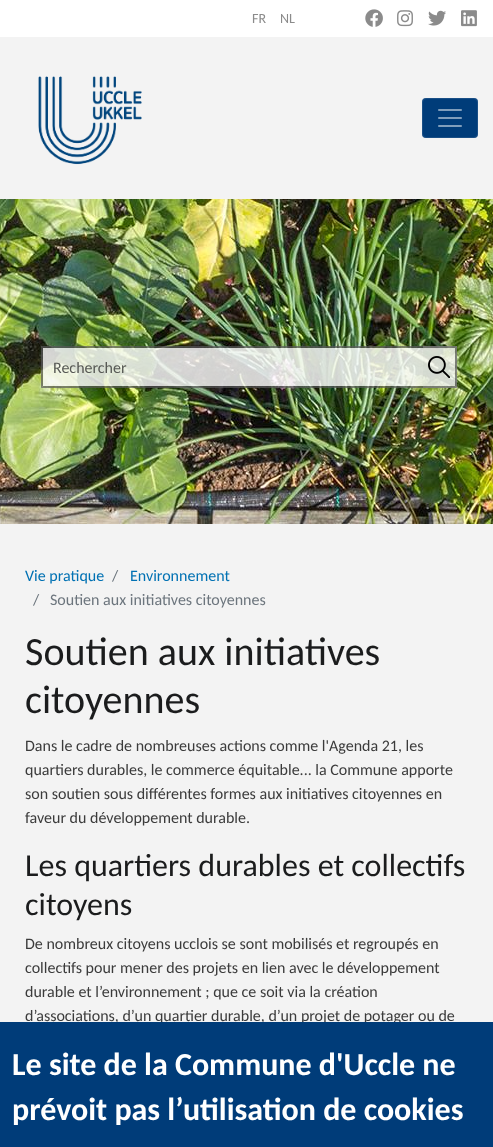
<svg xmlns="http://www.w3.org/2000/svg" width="493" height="1147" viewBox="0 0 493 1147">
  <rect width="100%" height="100%" fill="#f3f3f3"/>
  <rect x="0" y="0" width="493" height="37" fill="#ffffff"/>
  <text x="252" y="23" font-family="Carlito" font-size="14" fill="#8b8b8b">FR</text>
  <text x="280" y="23" font-family="Carlito" font-size="14" fill="#8b8b8b">NL</text>
  <image x="365" y="9" width="18" height="18" href="img1.png"/>
  <image x="397" y="10" width="16" height="17" href="img2.png"/>
  <image x="428" y="10" width="18" height="16" href="img3.png"/>
  <image x="461" y="10" width="16" height="17" href="img4.png"/>
  <image x="38" y="76" width="104" height="89" href="img5.png"/>
  <rect x="422" y="98" width="56" height="40" rx="4" fill="#003c79"/>
  <rect x="422.5" y="98.5" width="55" height="39" rx="3.5" fill="none" stroke="#ffffff" stroke-opacity="0.1"/>
  <image x="438" y="109" width="24" height="18" href="img6.png"/>
  <image x="0" y="199" width="493" height="325" href="img8.png"/>
  <rect x="41" y="346" width="382" height="42" fill="#f3f3f3" fill-opacity="0.4"/>
  <path d="M41 346H423V348H43Z" fill="#1b1c1d" fill-opacity="0.5"/>
  <path d="M423 388H41L43 386H423Z" fill="#1b1c1d" fill-opacity="0.5"/>
  <path d="M41 388V346L43 348V386Z" fill="#1b1c1d" fill-opacity="0.5"/>
  <rect x="43" y="348" width="380" height="38" fill="#ffffff" fill-opacity="0.7"/>
  <text x="53" y="373" font-family="Carlito" font-size="16" fill="#575955">Rechercher</text>
  <rect x="423" y="346" width="34" height="42" fill="#ffffff" fill-opacity="0.7"/>
  <path d="M423 346H457L455 348H423Z" fill="#1b1c1d" fill-opacity="0.5"/>
  <path d="M457 346V388L455 386V348Z" fill="#1b1c1d" fill-opacity="0.5"/>
  <path d="M457 388H423V386H455Z" fill="#1b1c1d" fill-opacity="0.5"/>
  <rect x="423" y="348" width="32" height="38" fill="#f3f3f3" fill-opacity="0.4"/>
  <image x="428" y="356" width="22" height="22" href="img7.png"/>
  <text x="25" y="581" font-family="Carlito" font-size="16" fill="#0071b3">Vie pratique</text>
  <text x="112" y="581" font-family="Carlito" font-size="16" fill="#6c757d">/</text>
  <text x="130" y="581" font-family="Carlito" font-size="16" fill="#0071b3">Environnement</text>
  <text x="33" y="605" font-family="Carlito" font-size="16" fill="#6c757d">/</text>
  <text x="50" y="605" font-family="Carlito" font-size="16" fill="#6c757d">Soutien aux initiatives citoyennes</text>
  <text x="25" y="665" font-family="Carlito" font-size="40" fill="#1b1c1d">Soutien aux initiatives</text>
  <text x="25" y="713" font-family="Carlito" font-size="40" fill="#1b1c1d">citoyennes</text>
  <text x="25" y="751" font-family="Carlito" font-size="16" fill="#3b3b3b">Dans le cadre de nombreuses actions comme l'Agenda 21, les</text>
  <text x="25" y="775" font-family="Carlito" font-size="16" fill="#3b3b3b">quartiers durables, le commerce équitable... la Commune apporte</text>
  <text x="25" y="799" font-family="Carlito" font-size="16" fill="#3b3b3b">son soutien sous différentes formes aux initiatives citoyennes en</text>
  <text x="25" y="823" font-family="Carlito" font-size="16" fill="#3b3b3b">faveur du développement durable.</text>
  <text x="25" y="876" font-family="Carlito" font-size="32" fill="#1b1c1d">Les quartiers durables et collectifs</text>
  <text x="25" y="915" font-family="Carlito" font-size="32" fill="#1b1c1d">citoyens</text>
  <text x="25" y="949" font-family="Carlito" font-size="16" fill="#3b3b3b">De nombreux citoyens ucclois se sont mobilisés et regroupés en</text>
  <text x="25" y="973" font-family="Carlito" font-size="16" fill="#3b3b3b">collectifs pour mener des projets en lien avec le développement</text>
  <text x="25" y="997" font-family="Carlito" font-size="16" fill="#3b3b3b">durable et l’environnement ; que ce soit via la création</text>
  <text x="25" y="1021" font-family="Carlito" font-size="16" fill="#3b3b3b">d’associations, d’un quartier durable, d’un projet de potager ou de</text>
  <rect x="0" y="1022" width="493" height="125" fill="#003c79"/>
  <text x="12" y="1075" font-family="Carlito" font-size="32" font-weight="bold" fill="#ffffff">Le site de la Commune d'Uccle ne</text>
  <text x="12" y="1120" font-family="Carlito" font-size="32" font-weight="bold" fill="#ffffff">prévoit pas l’utilisation de cookies</text>
</svg>
